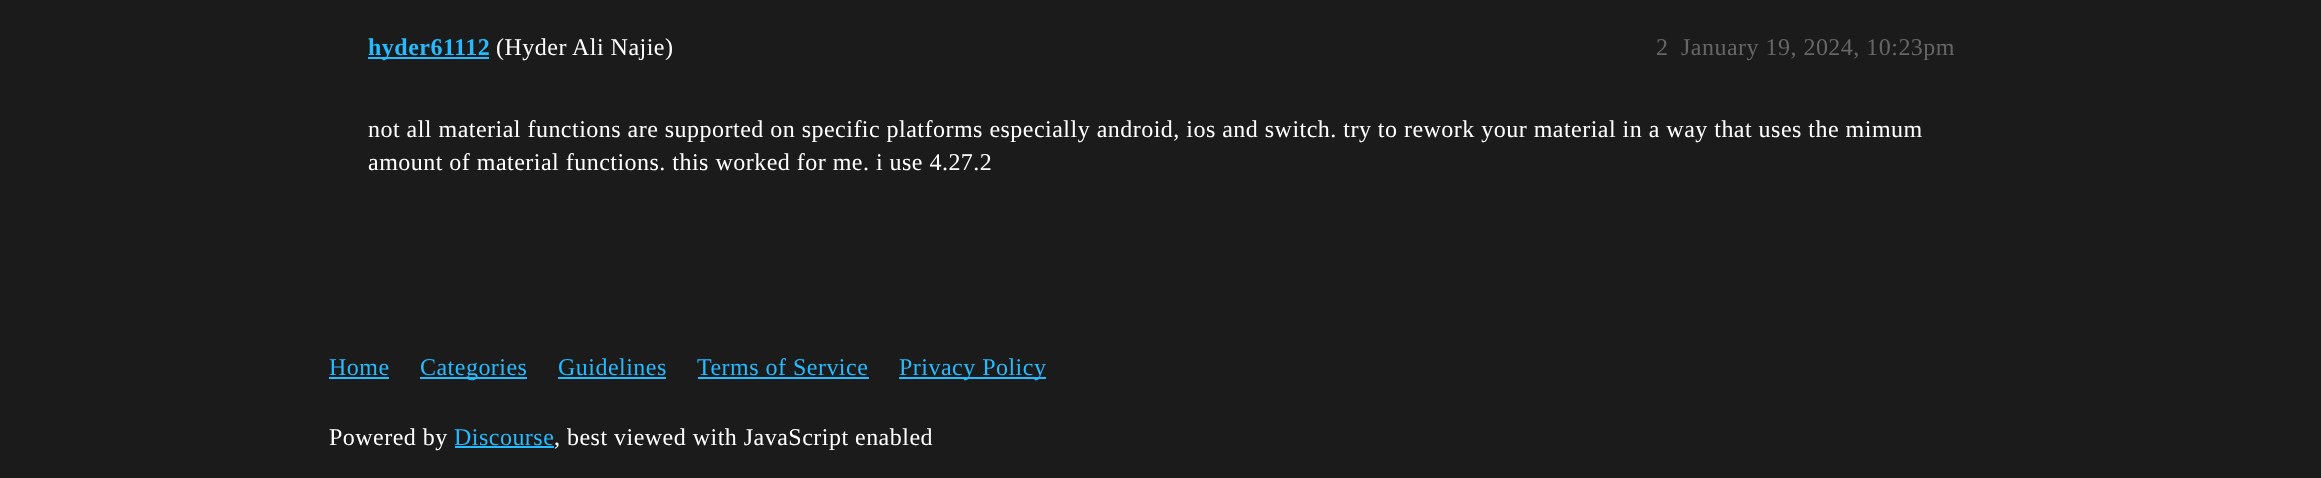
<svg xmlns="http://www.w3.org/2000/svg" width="2321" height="478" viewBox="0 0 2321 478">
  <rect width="100%" height="100%" fill="#1b1b1b"/>
  <rect x="368" y="57" width="121" height="2" fill="#26bbff"/>
  <text x="368" y="55" font-family="Liberation Serif" font-size="24" font-weight="bold" letter-spacing="0.48" fill="#26bbff">hyder61112</text>
  <text x="496" y="55" font-family="Liberation Serif" font-size="24" letter-spacing="0.48" fill="#ffffff">(Hyder Ali Najie)</text>
  <text x="1656" y="55" font-family="Liberation Serif" font-size="24" letter-spacing="0.48" fill="#666666">2</text>
  <text x="1681" y="55" font-family="Liberation Serif" font-size="24" letter-spacing="0.48" fill="#666666">January 19, 2024, 10:23pm</text>
  <text x="368" y="137" font-family="Liberation Serif" font-size="24" letter-spacing="0.48" fill="#ffffff">not all material functions are supported on specific platforms especially android, ios and switch. try to rework your material in a way that uses the mimum</text>
  <text x="368" y="170" font-family="Liberation Serif" font-size="24" letter-spacing="0.48" fill="#ffffff">amount of material functions. this worked for me. i use 4.27.2</text>
  <text x="329" y="375" font-family="Liberation Serif" font-size="24" letter-spacing="0.48" fill="#26bbff">Home</text>
  <rect x="329" y="377" width="60" height="2" fill="#26bbff"/>
  <rect x="420" y="377" width="107" height="2" fill="#26bbff"/>
  <text x="420" y="375" font-family="Liberation Serif" font-size="24" letter-spacing="0.48" fill="#26bbff">Categories</text>
  <text x="558" y="375" font-family="Liberation Serif" font-size="24" letter-spacing="0.48" fill="#26bbff">Guidelines</text>
  <rect x="558" y="377" width="108" height="2" fill="#26bbff"/>
  <text x="697" y="375" font-family="Liberation Serif" font-size="24" letter-spacing="0.48" fill="#26bbff">Terms of Service</text>
  <rect x="698" y="377" width="171" height="2" fill="#26bbff"/>
  <rect x="899" y="377" width="147" height="2" fill="#26bbff"/>
  <text x="899" y="375" font-family="Liberation Serif" font-size="24" letter-spacing="0.48" fill="#26bbff">Privacy Policy</text>
  <text x="329" y="445" font-family="Liberation Serif" font-size="24" letter-spacing="0.48" fill="#ffffff">Powered by</text>
  <text x="454" y="445" font-family="Liberation Serif" font-size="24" letter-spacing="0.48" fill="#26bbff">Discourse</text>
  <rect x="455" y="446" width="99" height="2" fill="#26bbff"/>
  <text x="554" y="445" font-family="Liberation Serif" font-size="24" letter-spacing="0.48" fill="#ffffff">, best viewed with JavaScript enabled</text>
</svg>
